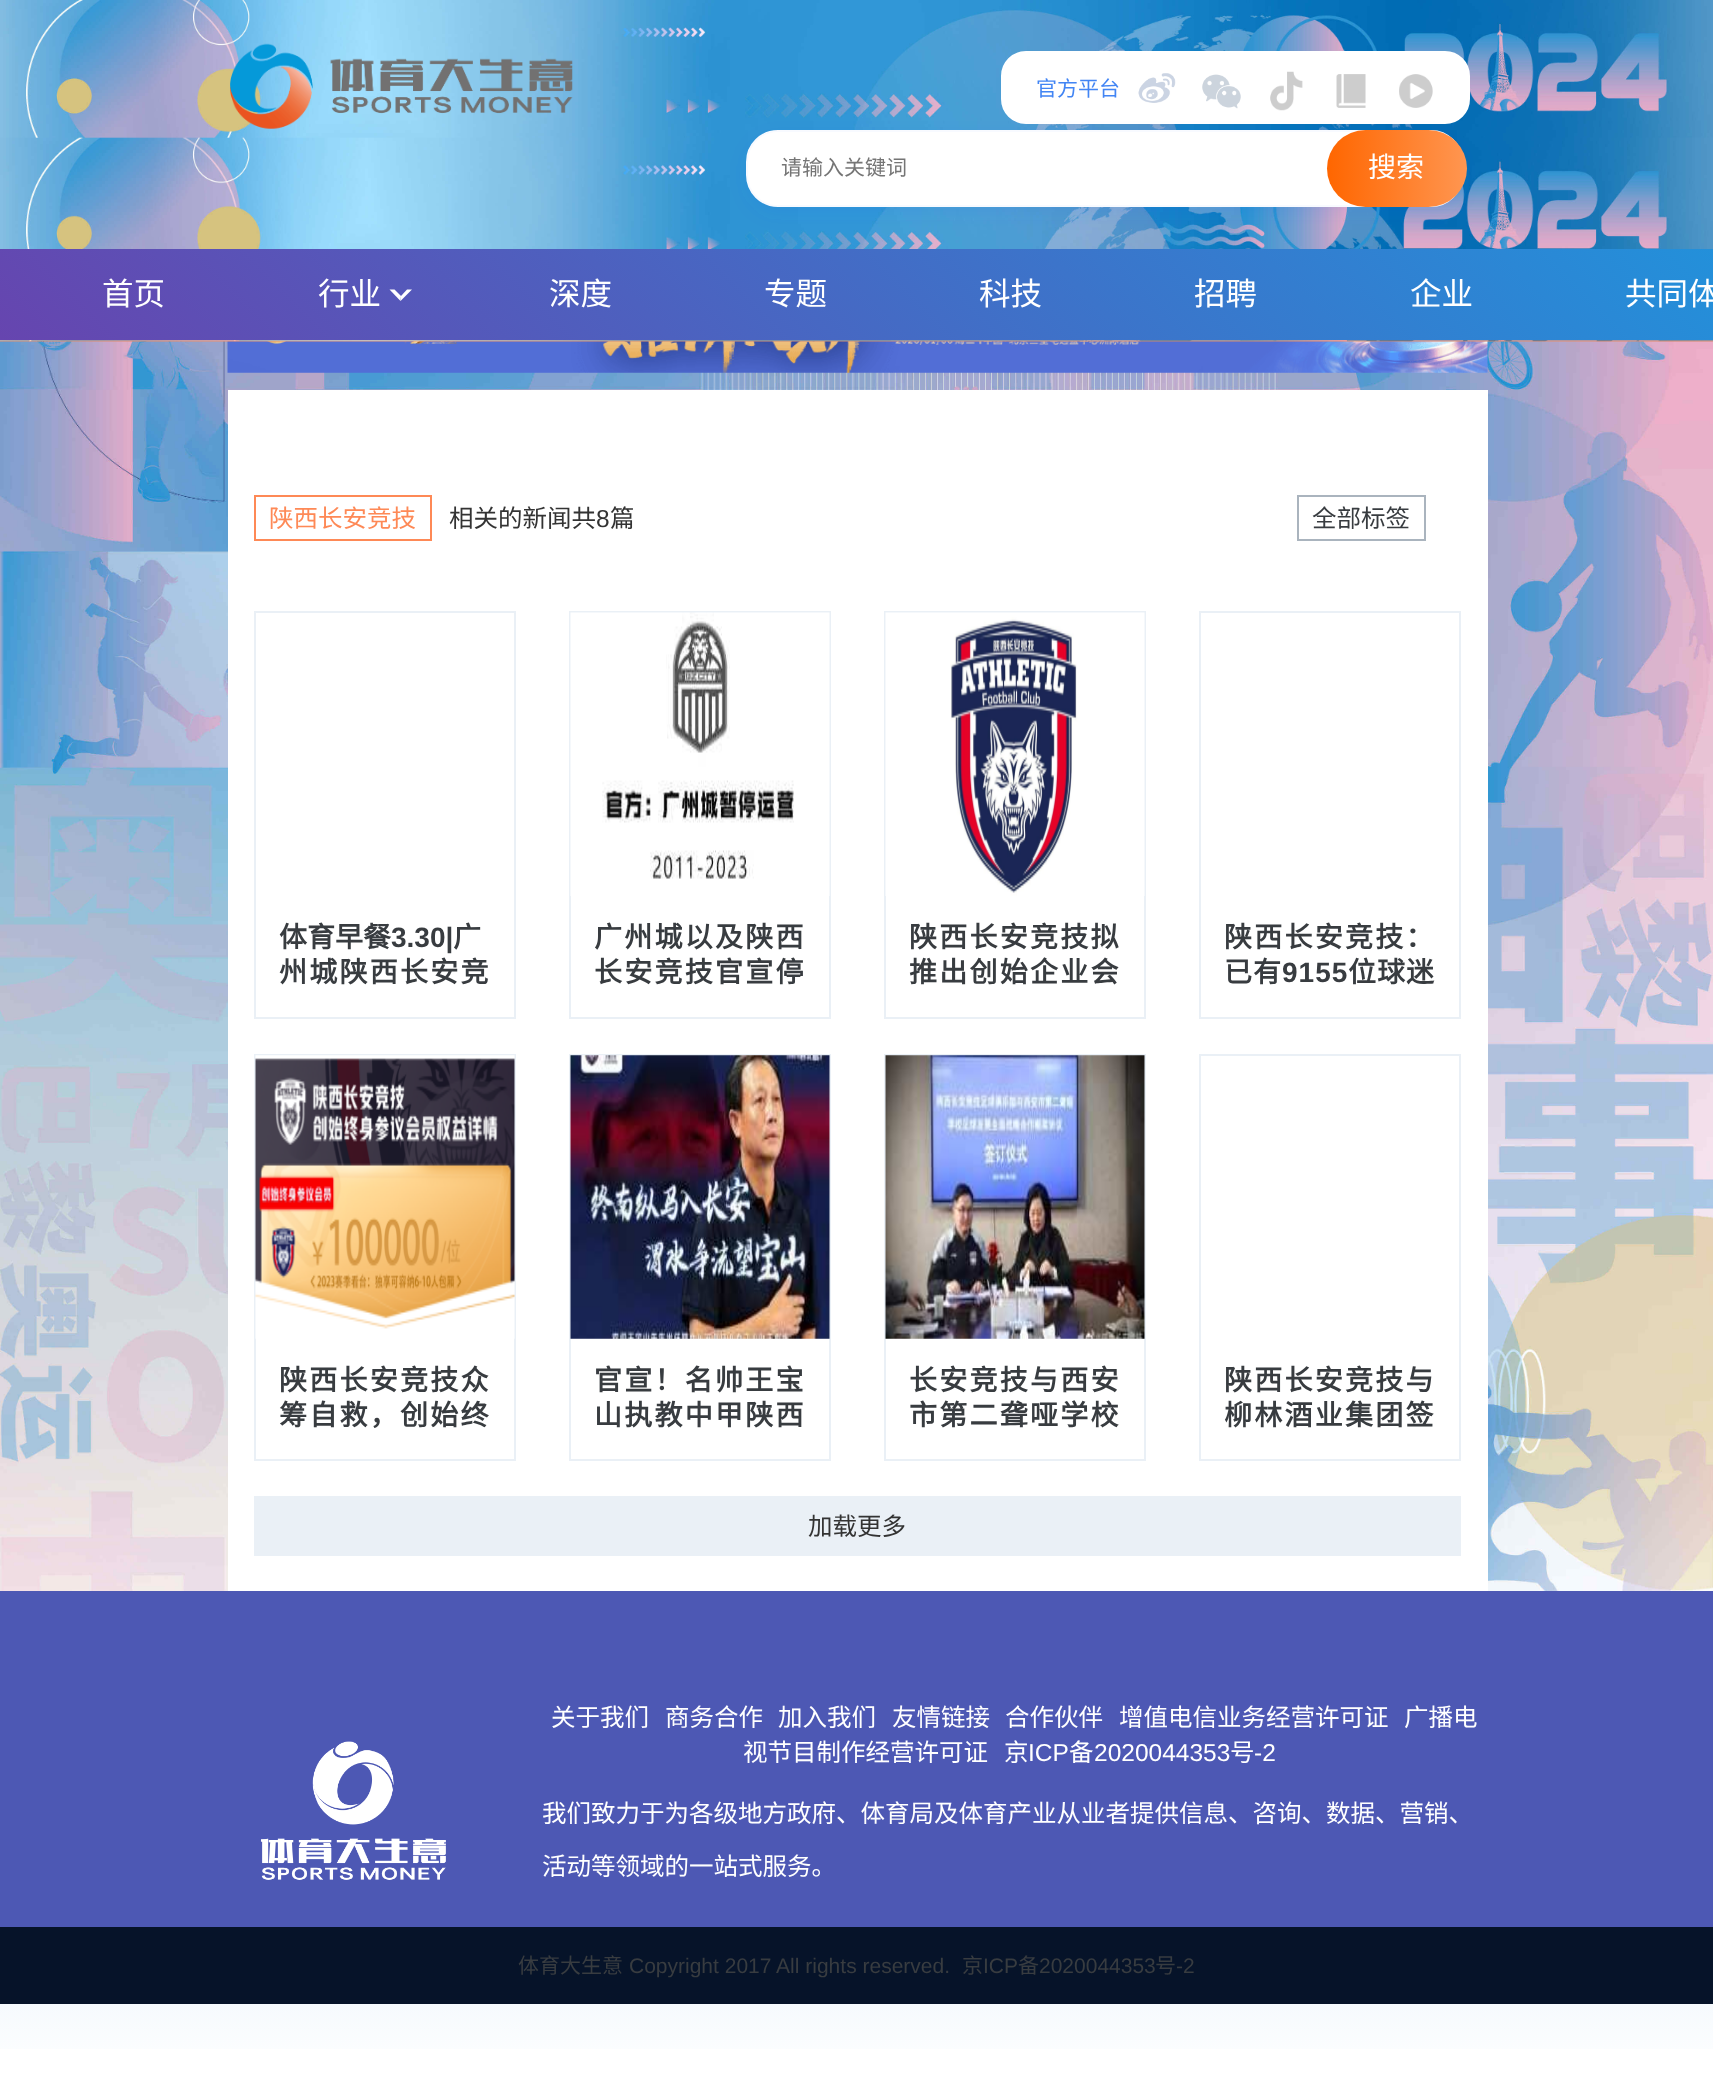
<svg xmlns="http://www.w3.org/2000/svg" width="1713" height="2085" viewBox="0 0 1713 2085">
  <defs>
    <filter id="blur1" x="-50%" y="-200%" width="200%" height="500%"><feGaussianBlur stdDeviation="9"/></filter>
    <linearGradient id="g1" gradientUnits="userSpaceOnUse" x1="1467" y1="168" x2="1327" y2="168"><stop offset="0" stop-color="#ff9651"/><stop offset="1" stop-color="#ff6600"/></linearGradient>
    <linearGradient id="g2" gradientUnits="userSpaceOnUse" x1="406" y1="745" x2="1308" y2="-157"><stop offset="0" stop-color="#6645af"/><stop offset="1" stop-color="#2390da"/></linearGradient>
  </defs>
  <rect width="100%" height="100%" fill="#ffffff"/>
  <image x="0" y="341" width="1713" height="1708" href="img8.png"/>
  <image x="227" y="341" width="1261" height="32" href="img9.png"/>
  <image x="0" y="0" width="1713" height="342" href="img1.png"/>
  <rect x="0" y="340" width="1713" height="2" fill="#fe8956" fill-opacity="0.4"/>
  <image x="230" y="43" width="343" height="86" href="img2.png"/>
  <rect x="1002" y="52" width="467" height="71" rx="24" fill="#ffffff" stroke="#ffffff" stroke-width="2"/>
  <text x="1036" y="96" font-family="Noto Sans CJK SC" font-size="21" fill="#4285f4">官方平台</text>
  <image x="1138" y="73" width="38" height="30" href="img3.png"/>
  <image x="1202" y="74" width="39" height="35" href="img4.png"/>
  <image x="1270" y="71" width="33" height="40" href="img5.png"/>
  <image x="1336" y="74" width="30" height="34" href="img6.png"/>
  <image x="1399" y="74" width="34" height="34" href="img7.png"/>
  <rect x="746" y="137" width="717" height="77" rx="32" fill="#0055ff" fill-opacity="0.08" filter="url(#blur1)"/>
  <rect x="747" y="131" width="715" height="75" rx="31" fill="#ffffff" stroke="#f8faff" stroke-width="2"/>
  <text x="781" y="175" font-family="Noto Sans CJK SC" font-size="21" fill="#757575">请输入关键词</text>
  <rect x="1327" y="130" width="140" height="77" rx="38.5" fill="url(#g1)"/>
  <text x="1368" y="177" font-family="Noto Sans CJK SC" font-size="28" fill="#ffffff">搜索</text>
  <rect x="0" y="249" width="1713" height="91" fill="url(#g2)"/>
  <text x="102" y="305" font-family="Noto Sans CJK SC" font-size="31.5" fill="#ffffff">首页</text>
  <text x="318" y="305" font-family="Noto Sans CJK SC" font-size="31.5" fill="#ffffff">行业</text>
  <path d="M412 289.5L400.5 301L401 296L407 289.5Z" fill="#ffffff"/>
  <path d="M400.5 301L389.5 289.5H394.5L401 296Z" fill="#ffffff"/>
  <text x="549" y="305" font-family="Noto Sans CJK SC" font-size="31.5" fill="#ffffff">深度</text>
  <text x="764" y="305" font-family="Noto Sans CJK SC" font-size="31.5" fill="#ffffff">专题</text>
  <text x="979" y="305" font-family="Noto Sans CJK SC" font-size="31.5" fill="#ffffff">科技</text>
  <text x="1194" y="305" font-family="Noto Sans CJK SC" font-size="31.5" fill="#ffffff">招聘</text>
  <text x="1410" y="305" font-family="Noto Sans CJK SC" font-size="31.5" fill="#ffffff">企业</text>
  <text x="1625" y="305" font-family="Noto Sans CJK SC" font-size="31.5" fill="#ffffff">共同体</text>
  <rect x="228" y="390" width="1260" height="1201" fill="#ffffff"/>
  <rect x="255" y="496" width="176" height="44" fill="none" stroke="#fe8956" stroke-width="2"/>
  <text x="269" y="527" font-family="Noto Sans CJK SC" font-size="24.5" fill="#fe8956">陕西长安竞技</text>
  <text x="449" y="527" font-family="Noto Sans CJK SC" font-size="24.5" fill="#333333">相关的新闻共</text>
  <text x="596" y="527" font-family="Liberation Sans" font-size="24.5" fill="#333333">8</text>
  <text x="610" y="527" font-family="Noto Sans CJK SC" font-size="24.5" fill="#333333">篇</text>
  <rect x="1298" y="496" width="127" height="44" fill="none" stroke="#aab4be" stroke-width="2"/>
  <text x="1312" y="527" font-family="Noto Sans CJK SC" font-size="24.5" fill="#383c40">全部标签</text>
  <rect x="255" y="612" width="260" height="406" fill="none" stroke="#eaf0f6" stroke-width="2"/>
  <text x="279" y="947" font-family="Noto Sans CJK SC" font-size="28" font-weight="bold" fill="#383c40">体育早餐</text>
  <text x="391" y="947" font-family="Liberation Sans" font-size="28" font-weight="bold" fill="#383c40">3.30|</text>
  <text x="453" y="947" font-family="Noto Sans CJK SC" font-size="28" font-weight="bold" fill="#383c40">广</text>
  <text x="279" y="982" font-family="Noto Sans CJK SC" font-size="28" font-weight="bold" letter-spacing="2.25" fill="#383c40">州城陕西长安竞</text>
  <rect x="570" y="612" width="260" height="406" fill="none" stroke="#eaf0f6" stroke-width="2"/>
  <image x="570" y="612" width="260" height="284" href="img10.png"/>
  <text x="594" y="947" font-family="Noto Sans CJK SC" font-size="28" font-weight="bold" letter-spacing="2.25" fill="#383c40">广州城以及陕西</text>
  <text x="594" y="982" font-family="Noto Sans CJK SC" font-size="28" font-weight="bold" letter-spacing="2.25" fill="#383c40">长安竞技官宣停</text>
  <rect x="885" y="612" width="260" height="406" fill="none" stroke="#eaf0f6" stroke-width="2"/>
  <image x="885" y="612" width="260" height="284" href="img11.png"/>
  <text x="909" y="947" font-family="Noto Sans CJK SC" font-size="28" font-weight="bold" letter-spacing="2.25" fill="#383c40">陕西长安竞技拟</text>
  <text x="909" y="982" font-family="Noto Sans CJK SC" font-size="28" font-weight="bold" letter-spacing="2.25" fill="#383c40">推出创始企业会</text>
  <rect x="1200" y="612" width="260" height="406" fill="none" stroke="#eaf0f6" stroke-width="2"/>
  <text x="1224" y="947" font-family="Noto Sans CJK SC" font-size="28" font-weight="bold" letter-spacing="2.25" fill="#383c40">陕西长安竞技：</text>
  <text x="1224" y="982" font-family="Noto Sans CJK SC" font-size="28" font-weight="bold" letter-spacing="1" fill="#383c40">已有</text>
  <text x="1282" y="982" font-family="Liberation Sans" font-size="28" font-weight="bold" letter-spacing="1" fill="#383c40">9155</text>
  <text x="1348" y="982" font-family="Noto Sans CJK SC" font-size="28" font-weight="bold" letter-spacing="1" fill="#383c40">位球迷</text>
  <rect x="255" y="1055" width="260" height="405" fill="none" stroke="#eaf0f6" stroke-width="2"/>
  <image x="255" y="1055" width="260" height="284" href="img12.png"/>
  <text x="279" y="1390" font-family="Noto Sans CJK SC" font-size="28" font-weight="bold" letter-spacing="2.25" fill="#383c40">陕西长安竞技众</text>
  <text x="279" y="1425" font-family="Noto Sans CJK SC" font-size="28" font-weight="bold" letter-spacing="2.25" fill="#383c40">筹自救，创始终</text>
  <rect x="570" y="1055" width="260" height="405" fill="none" stroke="#eaf0f6" stroke-width="2"/>
  <image x="570" y="1055" width="260" height="284" href="img13.png"/>
  <text x="594" y="1390" font-family="Noto Sans CJK SC" font-size="28" font-weight="bold" letter-spacing="2.25" fill="#383c40">官宣！名帅王宝</text>
  <text x="594" y="1425" font-family="Noto Sans CJK SC" font-size="28" font-weight="bold" letter-spacing="2.25" fill="#383c40">山执教中甲陕西</text>
  <rect x="885" y="1055" width="260" height="405" fill="none" stroke="#eaf0f6" stroke-width="2"/>
  <image x="885" y="1055" width="260" height="284" href="img14.png"/>
  <text x="909" y="1390" font-family="Noto Sans CJK SC" font-size="28" font-weight="bold" letter-spacing="2.25" fill="#383c40">长安竞技与西安</text>
  <text x="909" y="1425" font-family="Noto Sans CJK SC" font-size="28" font-weight="bold" letter-spacing="2.25" fill="#383c40">市第二聋哑学校</text>
  <rect x="1200" y="1055" width="260" height="405" fill="none" stroke="#eaf0f6" stroke-width="2"/>
  <text x="1224" y="1390" font-family="Noto Sans CJK SC" font-size="28" font-weight="bold" letter-spacing="2.25" fill="#383c40">陕西长安竞技与</text>
  <text x="1224" y="1425" font-family="Noto Sans CJK SC" font-size="28" font-weight="bold" letter-spacing="2.25" fill="#383c40">柳林酒业集团签</text>
  <rect x="254" y="1496" width="1207" height="60" fill="#eaf0f6"/>
  <text x="808" y="1535" font-family="Noto Sans CJK SC" font-size="24.5" fill="#333333">加载更多</text>
  <rect x="0" y="1591" width="1713" height="336" fill="#4d58b4"/>
  <image x="261" y="1741" width="185" height="139" href="img15.png"/>
  <text x="551" y="1726" font-family="Noto Sans CJK SC" font-size="24.5" fill="#ffffff">关于我们</text>
  <text x="665" y="1726" font-family="Noto Sans CJK SC" font-size="24.5" fill="#ffffff">商务合作</text>
  <text x="778" y="1726" font-family="Noto Sans CJK SC" font-size="24.5" fill="#ffffff">加入我们</text>
  <text x="892" y="1726" font-family="Noto Sans CJK SC" font-size="24.5" fill="#ffffff">友情链接</text>
  <text x="1005" y="1726" font-family="Noto Sans CJK SC" font-size="24.5" fill="#ffffff">合作伙伴</text>
  <text x="1119" y="1726" font-family="Noto Sans CJK SC" font-size="24.5" fill="#ffffff">增值电信业务经营许可证</text>
  <text x="1404" y="1726" font-family="Noto Sans CJK SC" font-size="24.5" fill="#ffffff">广播电</text>
  <text x="743" y="1761" font-family="Noto Sans CJK SC" font-size="24.5" fill="#ffffff">视节目制作经营许可证</text>
  <text x="1004" y="1761" font-family="Noto Sans CJK SC" font-size="24.5" fill="#ffffff">京</text>
  <text x="1028" y="1761" font-family="Liberation Sans" font-size="24.5" fill="#ffffff">ICP</text>
  <text x="1069" y="1761" font-family="Noto Sans CJK SC" font-size="24.5" fill="#ffffff">备</text>
  <text x="1094" y="1761" font-family="Liberation Sans" font-size="24.5" fill="#ffffff">2020044353</text>
  <text x="1230" y="1761" font-family="Noto Sans CJK SC" font-size="24.5" fill="#ffffff">号</text>
  <text x="1254" y="1761" font-family="Liberation Sans" font-size="24.5" fill="#ffffff">-2</text>
  <text x="542" y="1822" font-family="Noto Sans CJK SC" font-size="24.5" fill="#ffffff">我们致力于为各级地方政府、体育局及体育产业从业者提供信息、咨询、数据、营销、</text>
  <text x="542" y="1875" font-family="Noto Sans CJK SC" font-size="24.5" fill="#ffffff">活动等领域的一站式服务。</text>
  <rect x="0" y="1927" width="1713" height="77" fill="#061329"/>
  <text x="518" y="1973" font-family="Noto Sans CJK SC" font-size="21" fill="#383c40">体育大生意</text>
  <text x="629" y="1973" font-family="Liberation Sans" font-size="21" fill="#383c40">Copyright 2017 All rights reserved.</text>
  <text x="962" y="1973" font-family="Noto Sans CJK SC" font-size="21" fill="#383c40">京</text>
  <text x="983" y="1973" font-family="Liberation Sans" font-size="21" fill="#383c40">ICP</text>
  <text x="1018" y="1973" font-family="Noto Sans CJK SC" font-size="21" fill="#383c40">备</text>
  <text x="1039" y="1973" font-family="Liberation Sans" font-size="21" fill="#383c40">2020044353</text>
  <text x="1155" y="1973" font-family="Noto Sans CJK SC" font-size="21" fill="#383c40">号</text>
  <text x="1176" y="1973" font-family="Liberation Sans" font-size="21" fill="#383c40">-2</text>
</svg>
